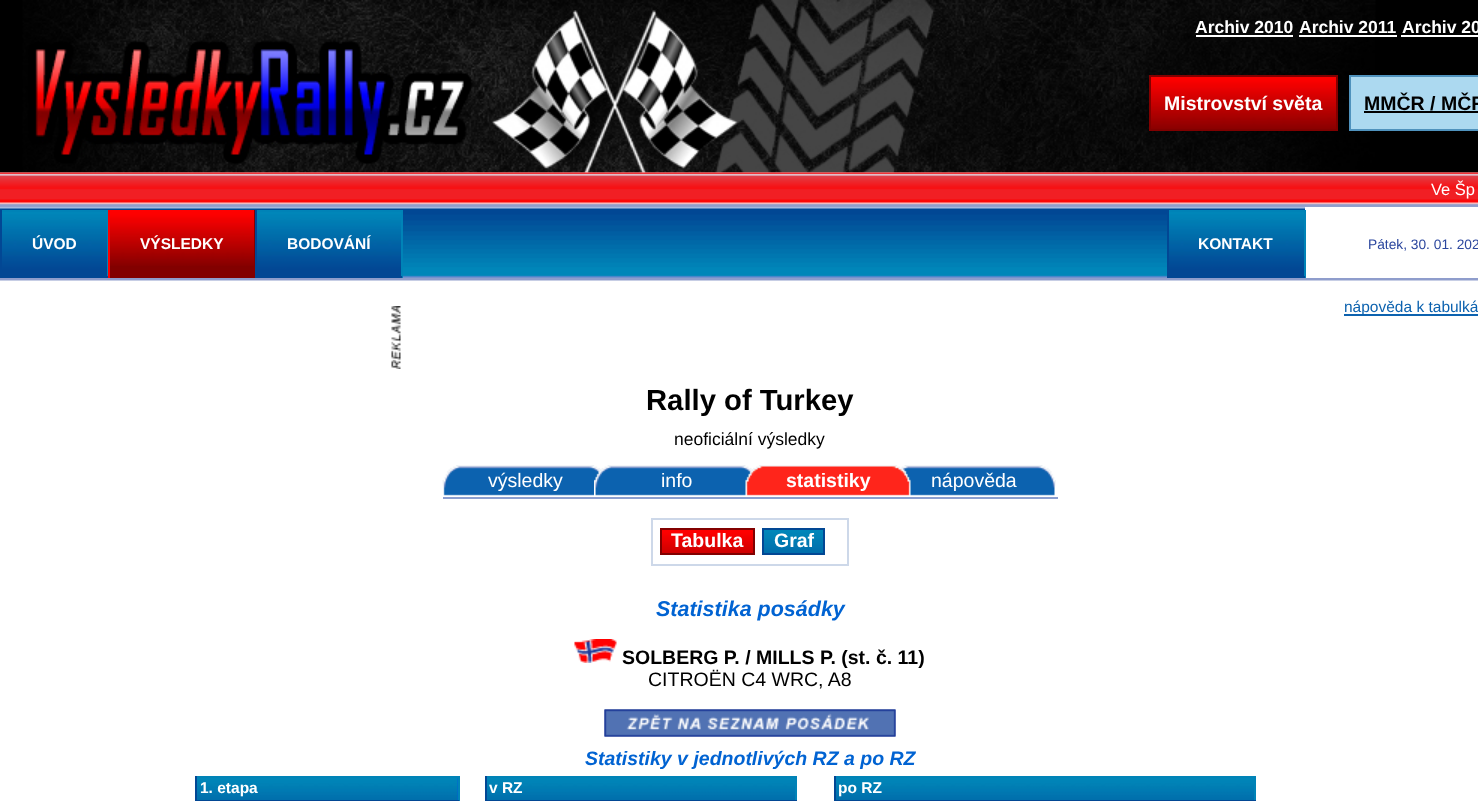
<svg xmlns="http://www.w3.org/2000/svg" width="1478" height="801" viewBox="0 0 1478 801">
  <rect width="100%" height="100%" fill="#ffffff"/>
  <image x="0" y="0" width="1478" height="173" href="img1.png"/>
  <text x="1195" y="33" font-family="Liberation Sans" font-size="17.5" font-weight="bold" fill="#ffffff">Archiv 2010</text>
  <rect x="1196" y="35" width="97" height="2" fill="#ffffff"/>
  <text x="1299" y="33" font-family="Liberation Sans" font-size="17.5" font-weight="bold" fill="#ffffff">Archiv 2011</text>
  <rect x="1299" y="35" width="98" height="2" fill="#ffffff"/>
  <text x="1402" y="33" font-family="Liberation Sans" font-size="17.5" font-weight="bold" fill="#ffffff">Archiv 20</text>
  <rect x="1401" y="35" width="77" height="2" fill="#ffffff"/>
  <image x="1151" y="77" width="185" height="52" href="img2.png"/>
  <rect x="1150" y="76" width="187" height="54" fill="none" stroke="#820000" stroke-width="2"/>
  <text x="1164" y="110" font-family="Liberation Sans" font-size="19.5" font-weight="bold" fill="#ffffff">Mistrovství světa</text>
  <rect x="1350" y="76" width="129" height="54" fill="#acd9f0" stroke="#4f92bd" stroke-width="2"/>
  <text x="1364" y="110" font-family="Liberation Sans" font-size="19.5" font-weight="bold" fill="#000000">MMČR / MČR</text>
  <rect x="1364" y="111" width="114" height="2" fill="#000000"/>
  <image x="0" y="172" width="1478" height="109" href="img3.png"/>
  <text x="1431" y="195" font-family="Liberation Sans" font-size="16.5" fill="#ffffff">Ve Šp</text>
  <image x="2" y="212" width="105" height="64" href="img4.png"/>
  <rect x="0" y="210" width="108" height="2" fill="#0083b7"/>
  <rect x="107" y="210" width="1" height="68" fill="#0083b7"/>
  <rect x="0" y="276" width="108" height="2" fill="#024794"/>
  <rect x="0" y="210" width="2" height="68" fill="#024794"/>
  <text x="32" y="249" font-family="Liberation Sans" font-size="15.5" font-weight="bold" fill="#ffffff">ÚVOD</text>
  <rect x="110" y="266" width="144" height="12" fill="#820000"/>
  <image x="110" y="212" width="144" height="54" href="img5.png"/>
  <rect x="108" y="210" width="147" height="2" fill="#ff0000"/>
  <rect x="254" y="210" width="1" height="68" fill="#820000"/>
  <rect x="108" y="210" width="2" height="68" fill="#ff0000"/>
  <text x="140" y="249" font-family="Liberation Sans" font-size="15.5" font-weight="bold" fill="#ffffff">VÝSLEDKY</text>
  <image x="257" y="212" width="144" height="64" href="img6.png"/>
  <rect x="255" y="210" width="147" height="2" fill="#0083b7"/>
  <rect x="401" y="210" width="2" height="68" fill="#0083b7"/>
  <rect x="255" y="276" width="147" height="2" fill="#024794"/>
  <rect x="255" y="210" width="2" height="68" fill="#024794"/>
  <text x="287" y="249" font-family="Liberation Sans" font-size="15.5" font-weight="bold" fill="#ffffff">BODOVÁNÍ</text>
  <image x="1169" y="212" width="135" height="64" href="img7.png"/>
  <rect x="1167" y="210" width="138" height="2" fill="#0083b7"/>
  <rect x="1305" y="207" width="173" height="71" fill="#ffffff"/>
  <rect x="1304" y="210" width="2" height="68" fill="#0083b7"/>
  <rect x="1167" y="276" width="138" height="2" fill="#024794"/>
  <rect x="1167" y="210" width="2" height="68" fill="#024794"/>
  <text x="1198" y="249" font-family="Liberation Sans" font-size="15.5" font-weight="bold" fill="#ffffff">KONTAKT</text>
  <text x="1368" y="249" font-family="Liberation Sans" font-size="13.75" fill="#2c479e">Pátek, 30. 01. 202</text>
  <rect x="1344" y="314" width="134" height="2" fill="#0c62af"/>
  <text x="1344" y="312" font-family="Liberation Sans" font-size="15.5" fill="#0c62af">nápověda k tabulká</text>
  <image x="604" y="709" width="292" height="28" href="img8.png"/>
  <image x="604" y="709" width="292" height="28" href="img9.png"/>
  <text x="585" y="765" font-family="Liberation Sans" font-size="19.5" font-weight="bold" font-style="italic" fill="#0163d2">Statistiky v jednotlivých RZ a po RZ</text>
  <rect x="457" y="778" width="1" height="22" fill="#0163d2"/>
  <image x="197" y="778" width="261" height="22" href="img10.png"/>
  <rect x="195" y="776" width="264" height="2" fill="#0083b7"/>
  <rect x="458" y="776" width="2" height="25" fill="#0083b7"/>
  <rect x="195" y="800" width="264" height="1" fill="#024794"/>
  <rect x="195" y="776" width="2" height="25" fill="#024794"/>
  <text x="200" y="793" font-family="Liberation Sans" font-size="15.5" font-weight="bold" fill="#ffffff">1. etapa</text>
  <image x="487" y="778" width="308" height="22" href="img11.png"/>
  <rect x="485" y="776" width="312" height="2" fill="#0083b7"/>
  <rect x="795" y="776" width="2" height="25" fill="#0083b7"/>
  <rect x="485" y="800" width="312" height="1" fill="#024794"/>
  <rect x="485" y="776" width="2" height="25" fill="#024794"/>
  <text x="489" y="793" font-family="Liberation Sans" font-size="15.5" font-weight="bold" fill="#ffffff">v RZ</text>
  <image x="836" y="778" width="418" height="22" href="img12.png"/>
  <rect x="834" y="776" width="422" height="2" fill="#0083b7"/>
  <rect x="1254" y="776" width="2" height="25" fill="#0083b7"/>
  <rect x="834" y="800" width="422" height="1" fill="#024794"/>
  <rect x="834" y="776" width="2" height="25" fill="#024794"/>
  <text x="838" y="793" font-family="Liberation Sans" font-size="15.5" font-weight="bold" fill="#ffffff">po RZ</text>
  <image x="391" y="306" width="10" height="63" href="img13.png"/>
  <text x="646" y="410" font-family="Liberation Sans" font-size="29.25" font-weight="bold" fill="#000000">Rally of Turkey</text>
  <text x="674" y="445" font-family="Liberation Sans" font-size="17.5" fill="#000000">neoficiální výsledky</text>
  <rect x="443" y="497" width="615" height="2" fill="#8a9ed0"/>
  <image x="442" y="465" width="160" height="31" href="img14.png"/>
  <text x="488" y="487" font-family="Liberation Sans" font-size="19.5" fill="#ffffff">výsledky</text>
  <image x="594" y="465" width="160" height="31" href="img15.png"/>
  <text x="661" y="487" font-family="Liberation Sans" font-size="19.5" fill="#ffffff">info</text>
  <image x="899" y="465" width="157" height="31" href="img17.png"/>
  <image x="745" y="465" width="166" height="31" href="img16.png"/>
  <text x="786" y="487" font-family="Liberation Sans" font-size="19.5" font-weight="bold" fill="#ffffff">statistiky</text>
  <text x="931" y="487" font-family="Liberation Sans" font-size="19.5" fill="#ffffff">nápověda</text>
  <rect x="652" y="519" width="196" height="46" fill="none" stroke="#cdd8e9" stroke-width="2"/>
  <image x="662" y="530" width="91" height="23" href="img18.png"/>
  <rect x="661" y="529" width="93" height="25" fill="none" stroke="#820000" stroke-width="2"/>
  <text x="671" y="547" font-family="Liberation Sans" font-size="19.5" font-weight="bold" fill="#ffffff">Tabulka</text>
  <image x="764" y="530" width="59" height="23" href="img19.png"/>
  <rect x="763" y="529" width="61" height="25" fill="none" stroke="#024794" stroke-width="2"/>
  <text x="774" y="547" font-family="Liberation Sans" font-size="19.5" font-weight="bold" fill="#ffffff">Graf</text>
  <text x="656" y="616" font-family="Liberation Sans" font-size="21.5" font-weight="bold" font-style="italic" fill="#0163d2">Statistika posádky</text>
  <image x="574" y="639" width="43" height="24" href="img20.png"/>
  <text x="622" y="664" font-family="Liberation Sans" font-size="19.5" font-weight="bold" fill="#000000">SOLBERG P. / MILLS P. (st. č. 11)</text>
  <text x="648" y="686" font-family="Liberation Sans" font-size="19.5" fill="#000000">CITROËN C4 WRC, A8</text>
</svg>
